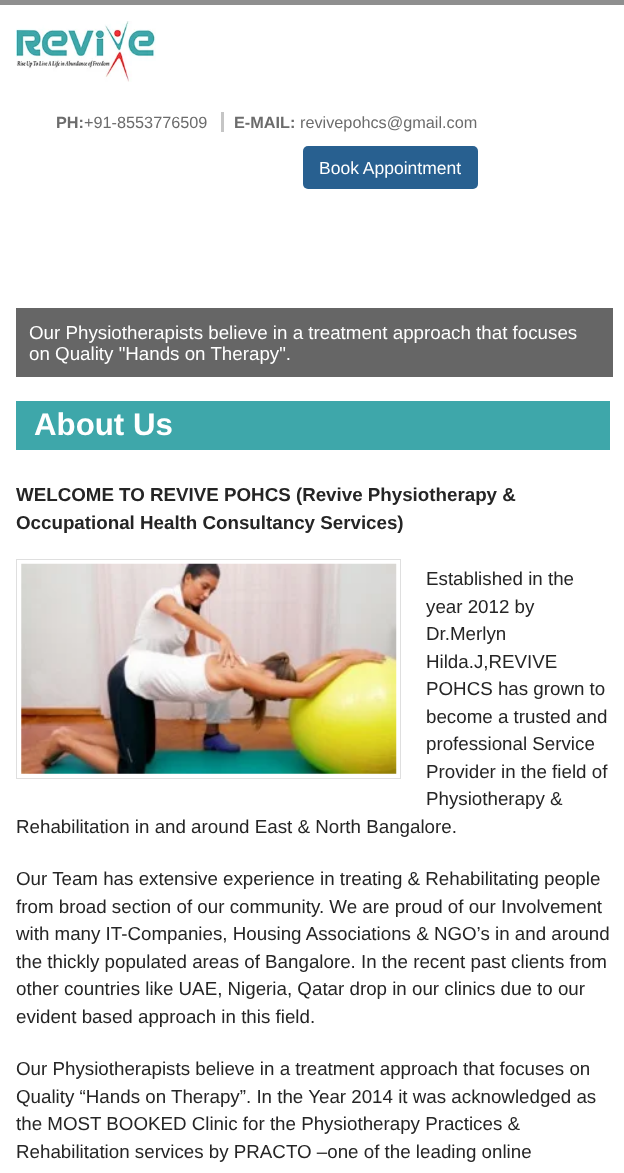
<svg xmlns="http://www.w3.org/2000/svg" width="624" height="1173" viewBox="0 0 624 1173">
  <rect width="100%" height="100%" fill="#ffffff"/>
  <rect x="0" y="0" width="624" height="5" fill="#8f8f8f"/>
  <image x="16" y="21" width="140" height="61" href="img1.png"/>
  <text x="56" y="128" font-family="Liberation Sans" font-size="16.25" font-weight="bold" fill="#6c6c6c">PH:</text>
  <text x="84" y="128" font-family="Liberation Sans" font-size="16.25" fill="#6c6c6c">+91-8553776509</text>
  <rect x="221" y="112" width="3" height="20" fill="#c5c5c5"/>
  <text x="234" y="128" font-family="Liberation Sans" font-size="16.25" font-weight="bold" fill="#6c6c6c">E-MAIL:</text>
  <text x="300" y="128" font-family="Liberation Sans" font-size="16.25" fill="#6c6c6c">revivepohcs@gmail.com</text>
  <rect x="303" y="146" width="175" height="43" rx="5" fill="#286090"/>
  <text x="319" y="174" font-family="Liberation Sans" font-size="17.5" fill="#ffffff">Book Appointment</text>
  <rect x="16" y="308" width="597" height="69" fill="#666666"/>
  <text x="29" y="339" font-family="Liberation Sans" font-size="18.75" fill="#ffffff">Our Physiotherapists believe in a treatment approach that focuses</text>
  <text x="29" y="360" font-family="Liberation Sans" font-size="18.75" fill="#ffffff">on Quality "Hands on Therapy".</text>
  <rect x="16" y="401" width="594" height="49" fill="#3ea7aa"/>
  <text x="34" y="435" font-family="Liberation Sans" font-size="31.25" font-weight="bold" fill="#ffffff">About Us</text>
  <text x="16" y="501" font-family="Liberation Sans" font-size="18.75" font-weight="bold" fill="#252525">WELCOME TO REVIVE POHCS (Revive Physiotherapy &amp;</text>
  <text x="16" y="529" font-family="Liberation Sans" font-size="18.75" font-weight="bold" fill="#252525">Occupational Health Consultancy Services)</text>
  <rect x="16.5" y="559.5" width="384" height="219" fill="none" stroke="#dfdfdf"/>
  <image x="21" y="563" width="376" height="211" href="img2.png"/>
  <text x="426" y="585" font-family="Liberation Sans" font-size="18.75" fill="#252525">Established in the</text>
  <text x="426" y="613" font-family="Liberation Sans" font-size="18.75" fill="#252525">year 2012 by</text>
  <text x="426" y="640" font-family="Liberation Sans" font-size="18.75" fill="#252525">Dr.Merlyn</text>
  <text x="426" y="668" font-family="Liberation Sans" font-size="18.75" fill="#252525">Hilda.J,REVIVE</text>
  <text x="426" y="695" font-family="Liberation Sans" font-size="18.75" fill="#252525">POHCS has grown to</text>
  <text x="426" y="723" font-family="Liberation Sans" font-size="18.75" fill="#252525">become a trusted and</text>
  <text x="426" y="750" font-family="Liberation Sans" font-size="18.75" fill="#252525">professional Service</text>
  <text x="426" y="778" font-family="Liberation Sans" font-size="18.75" fill="#252525">Provider in the field of</text>
  <text x="426" y="805" font-family="Liberation Sans" font-size="18.75" fill="#252525">Physiotherapy &amp;</text>
  <text x="16" y="833" font-family="Liberation Sans" font-size="18.75" fill="#252525">Rehabilitation in and around East &amp; North Bangalore.</text>
  <text x="16" y="885" font-family="Liberation Sans" font-size="18.75" fill="#252525">Our Team has extensive experience in treating &amp; Rehabilitating people</text>
  <text x="16" y="913" font-family="Liberation Sans" font-size="18.75" fill="#252525">from broad section of our community. We are proud of our Involvement</text>
  <text x="16" y="940" font-family="Liberation Sans" font-size="18.75" fill="#252525">with many IT-Companies, Housing Associations &amp; NGO’s in and around</text>
  <text x="16" y="968" font-family="Liberation Sans" font-size="18.75" fill="#252525">the thickly populated areas of Bangalore. In the recent past clients from</text>
  <text x="16" y="995" font-family="Liberation Sans" font-size="18.75" fill="#252525">other countries like UAE, Nigeria, Qatar drop in our clinics due to our</text>
  <text x="16" y="1023" font-family="Liberation Sans" font-size="18.75" fill="#252525">evident based approach in this field.</text>
  <text x="16" y="1075" font-family="Liberation Sans" font-size="18.75" fill="#252525">Our Physiotherapists believe in a treatment approach that focuses on</text>
  <text x="16" y="1103" font-family="Liberation Sans" font-size="18.75" fill="#252525">Quality “Hands on Therapy”. In the Year 2014 it was acknowledged as</text>
  <text x="16" y="1130" font-family="Liberation Sans" font-size="18.75" fill="#252525">the MOST BOOKED Clinic for the Physiotherapy Practices &amp;</text>
  <text x="16" y="1158" font-family="Liberation Sans" font-size="18.75" fill="#252525">Rehabilitation services by PRACTO –one of the leading online</text>
</svg>
